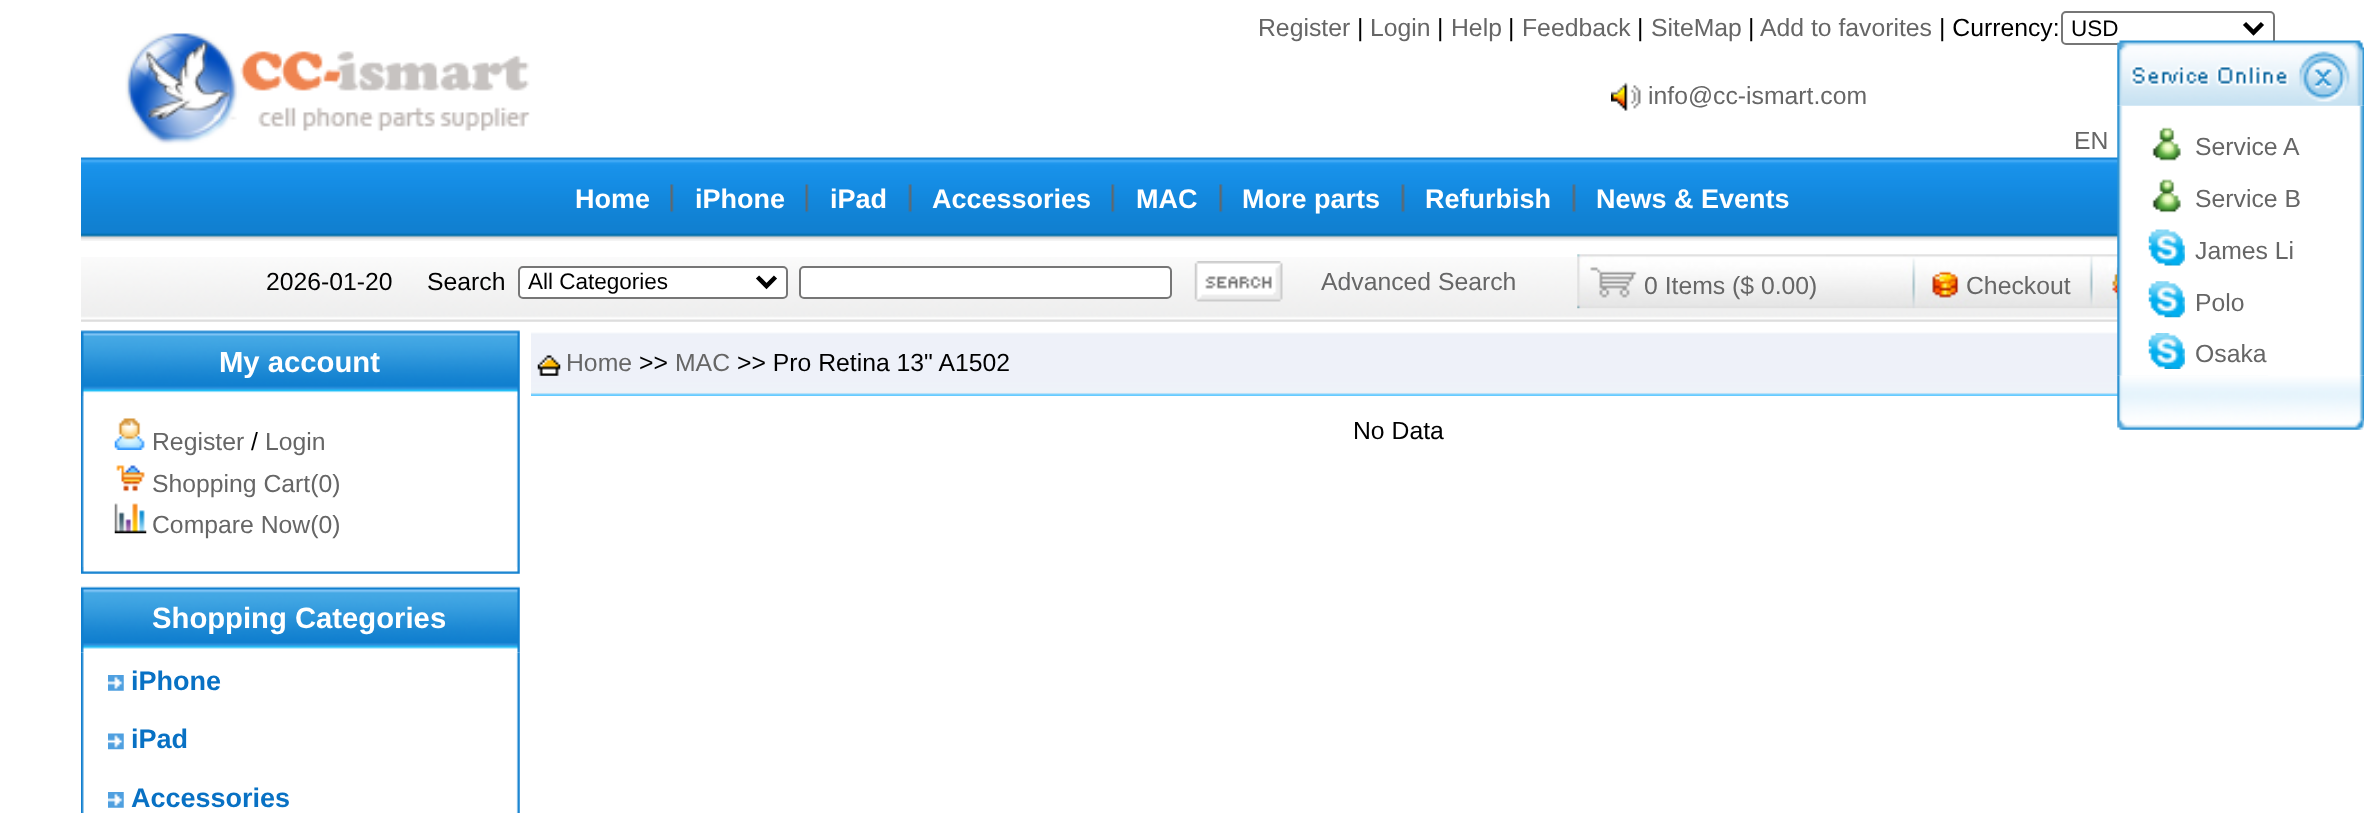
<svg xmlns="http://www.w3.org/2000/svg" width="2364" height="813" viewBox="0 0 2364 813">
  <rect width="100%" height="100%" fill="#ffffff"/>
  <image x="125" y="33" width="405" height="112" href="img1.png"/>
  <text x="1258" y="36" font-family="Liberation Sans" font-size="24.75" fill="#666666">Register</text>
  <text x="1357" y="36" font-family="Liberation Sans" font-size="24.75" fill="#000000">|</text>
  <text x="1370" y="36" font-family="Liberation Sans" font-size="24.75" fill="#666666">Login</text>
  <text x="1437" y="36" font-family="Liberation Sans" font-size="24.75" fill="#000000">|</text>
  <text x="1451" y="36" font-family="Liberation Sans" font-size="24.75" fill="#666666">Help</text>
  <text x="1508" y="36" font-family="Liberation Sans" font-size="24.75" fill="#000000">|</text>
  <text x="1522" y="36" font-family="Liberation Sans" font-size="24.75" fill="#666666">Feedback</text>
  <text x="1637" y="36" font-family="Liberation Sans" font-size="24.75" fill="#000000">|</text>
  <text x="1651" y="36" font-family="Liberation Sans" font-size="24.75" fill="#666666">SiteMap</text>
  <text x="1748" y="36" font-family="Liberation Sans" font-size="24.75" fill="#000000">|</text>
  <text x="1760" y="36" font-family="Liberation Sans" font-size="24.75" fill="#666666">Add to favorites</text>
  <text x="1939" y="36" font-family="Liberation Sans" font-size="24.75" fill="#000000">| Currency:</text>
  <rect x="2062" y="12" width="212" height="32" rx="4" fill="none" stroke="#767676" stroke-width="2"/>
  <path d="M2244.5 23.5L2253.5 32.5L2262.5 23.5" fill="none" stroke="#000000" stroke-width="4.5"/>
  <text x="2071" y="36" font-family="Liberation Sans" font-size="22.5" fill="#000000">USD</text>
  <image x="1611" y="82" width="30" height="29" href="img2.png"/>
  <text x="1648" y="104" font-family="Liberation Sans" font-size="24.75" fill="#666666">info@cc-ismart.com</text>
  <text x="2074" y="149" font-family="Liberation Sans" font-size="24.75" fill="#666666">EN</text>
  <image x="81" y="157" width="2037" height="84" href="img3.png"/>
  <text x="575" y="208" font-family="Liberation Sans" font-size="27" font-weight="bold" fill="#ffffff">Home</text>
  <image x="670" y="184" width="4" height="29" href="img4.png"/>
  <text x="695" y="208" font-family="Liberation Sans" font-size="27" font-weight="bold" fill="#ffffff">iPhone</text>
  <image x="805" y="184" width="4" height="29" href="img5.png"/>
  <text x="830" y="208" font-family="Liberation Sans" font-size="27" font-weight="bold" fill="#ffffff">iPad</text>
  <image x="908" y="184" width="4" height="29" href="img6.png"/>
  <text x="932" y="208" font-family="Liberation Sans" font-size="27" font-weight="bold" fill="#ffffff">Accessories</text>
  <image x="1111" y="184" width="4" height="29" href="img7.png"/>
  <text x="1136" y="208" font-family="Liberation Sans" font-size="27" font-weight="bold" fill="#ffffff">MAC</text>
  <image x="1219" y="184" width="4" height="29" href="img8.png"/>
  <text x="1242" y="208" font-family="Liberation Sans" font-size="27" font-weight="bold" fill="#ffffff">More parts</text>
  <image x="1401" y="184" width="4" height="29" href="img9.png"/>
  <text x="1425" y="208" font-family="Liberation Sans" font-size="27" font-weight="bold" fill="#ffffff">Refurbish</text>
  <image x="1572" y="184" width="4" height="29" href="img10.png"/>
  <text x="1596" y="208" font-family="Liberation Sans" font-size="27" font-weight="bold" fill="#ffffff">News &amp; Events</text>
  <image x="81" y="257" width="2037" height="65" href="img11.png"/>
  <text x="266" y="290" font-family="Liberation Sans" font-size="24.75" fill="#000000">2026-01-20</text>
  <text x="427" y="290" font-family="Liberation Sans" font-size="24.75" fill="#000000">Search</text>
  <rect x="519" y="267" width="268" height="31" rx="4" fill="#ffffff" stroke="#767676" stroke-width="2"/>
  <path d="M757.5 277L766.5 286L775.5 277" fill="none" stroke="#000000" stroke-width="4.5"/>
  <text x="528" y="289" font-family="Liberation Sans" font-size="22.5" fill="#000000">All Categories</text>
  <rect x="800" y="267" width="371" height="31" rx="4" fill="#ffffff" stroke="#767676" stroke-width="2"/>
  <image x="1194" y="261" width="89" height="41" href="img12.png"/>
  <text x="1321" y="290" font-family="Liberation Sans" font-size="24.75" fill="#666666">Advanced Search</text>
  <image x="1577" y="254" width="541" height="55" href="img13.png"/>
  <text x="1644" y="294" font-family="Liberation Sans" font-size="24.75" fill="#666666">0 Items ($ 0.00)</text>
  <text x="1966" y="294" font-family="Liberation Sans" font-size="24.75" fill="#666666">Checkout</text>
  <image x="531" y="332" width="1737" height="64" href="img32.png"/>
  <image x="2117" y="105" width="247" height="271" href="img15.png"/>
  <image x="2117" y="40" width="247" height="66" href="img14.png"/>
  <image x="2152" y="127" width="29" height="34" href="img16.png"/>
  <text x="2195" y="155" font-family="Liberation Sans" font-size="24.75" fill="#666666">Service A</text>
  <image x="2152" y="179" width="29" height="34" href="img17.png"/>
  <text x="2195" y="207" font-family="Liberation Sans" font-size="24.75" fill="#666666">Service B</text>
  <image x="2148" y="229" width="37" height="37" href="img18.png"/>
  <text x="2195" y="259" font-family="Liberation Sans" font-size="24.75" fill="#666666">James Li</text>
  <image x="2148" y="281" width="37" height="37" href="img19.png"/>
  <text x="2195" y="311" font-family="Liberation Sans" font-size="24.75" fill="#666666">Polo</text>
  <image x="2148" y="333" width="37" height="36" href="img20.png"/>
  <text x="2195" y="362" font-family="Liberation Sans" font-size="24.75" fill="#666666">Osaka</text>
  <image x="2117" y="375" width="247" height="55" href="img21.png"/>
  <image x="81" y="330" width="439" height="66" href="img22.png"/>
  <text x="219" y="372" font-family="Liberation Sans" font-size="29.25" font-weight="bold" fill="#ffffff">My account</text>
  <image x="81" y="396" width="439" height="171" href="img23.png"/>
  <image x="114" y="418" width="31" height="32" href="img24.png"/>
  <text x="152" y="450" font-family="Liberation Sans" font-size="24.75" fill="#666666">Register</text>
  <text x="251" y="450" font-family="Liberation Sans" font-size="24.75" fill="#000000">/</text>
  <text x="265" y="450" font-family="Liberation Sans" font-size="24.75" fill="#666666">Login</text>
  <image x="116" y="465" width="29" height="27" href="img25.png"/>
  <text x="152" y="492" font-family="Liberation Sans" font-size="24.75" fill="#666666">Shopping Cart(0)</text>
  <image x="114" y="503" width="33" height="31" href="img26.png"/>
  <text x="152" y="533" font-family="Liberation Sans" font-size="24.75" fill="#666666">Compare Now(0)</text>
  <image x="81" y="567" width="439" height="7" href="img27.png"/>
  <image x="81" y="586" width="439" height="67" href="img28.png"/>
  <text x="152" y="628" font-family="Liberation Sans" font-size="29.25" font-weight="bold" fill="#ffffff">Shopping Categories</text>
  <image x="81" y="652" width="439" height="161" href="img29.png"/>
  <image x="108" y="675" width="16" height="16" href="img30.png"/>
  <text x="131" y="690" font-family="Liberation Sans" font-size="27" font-weight="bold" fill="#0871c4">iPhone</text>
  <image x="108" y="733" width="16" height="17" href="img31.png"/>
  <text x="131" y="748" font-family="Liberation Sans" font-size="27" font-weight="bold" fill="#0871c4">iPad</text>
  <image x="108" y="792" width="16" height="16" href="img30.png"/>
  <text x="131" y="807" font-family="Liberation Sans" font-size="27" font-weight="bold" fill="#0871c4">Accessories</text>
  <image x="537" y="355" width="24" height="21" href="img33.png"/>
  <text x="566" y="371" font-family="Liberation Sans" font-size="24.75" fill="#666666">Home</text>
  <text x="639" y="371" font-family="Liberation Sans" font-size="24.75" fill="#000000">&gt;&gt;</text>
  <text x="675" y="371" font-family="Liberation Sans" font-size="24.75" fill="#666666">MAC</text>
  <text x="737" y="371" font-family="Liberation Sans" font-size="24.75" fill="#000000">&gt;&gt; Pro Retina 13" A1502</text>
  <text x="1353" y="439" font-family="Liberation Sans" font-size="24.75" fill="#000000">No Data</text>
</svg>
